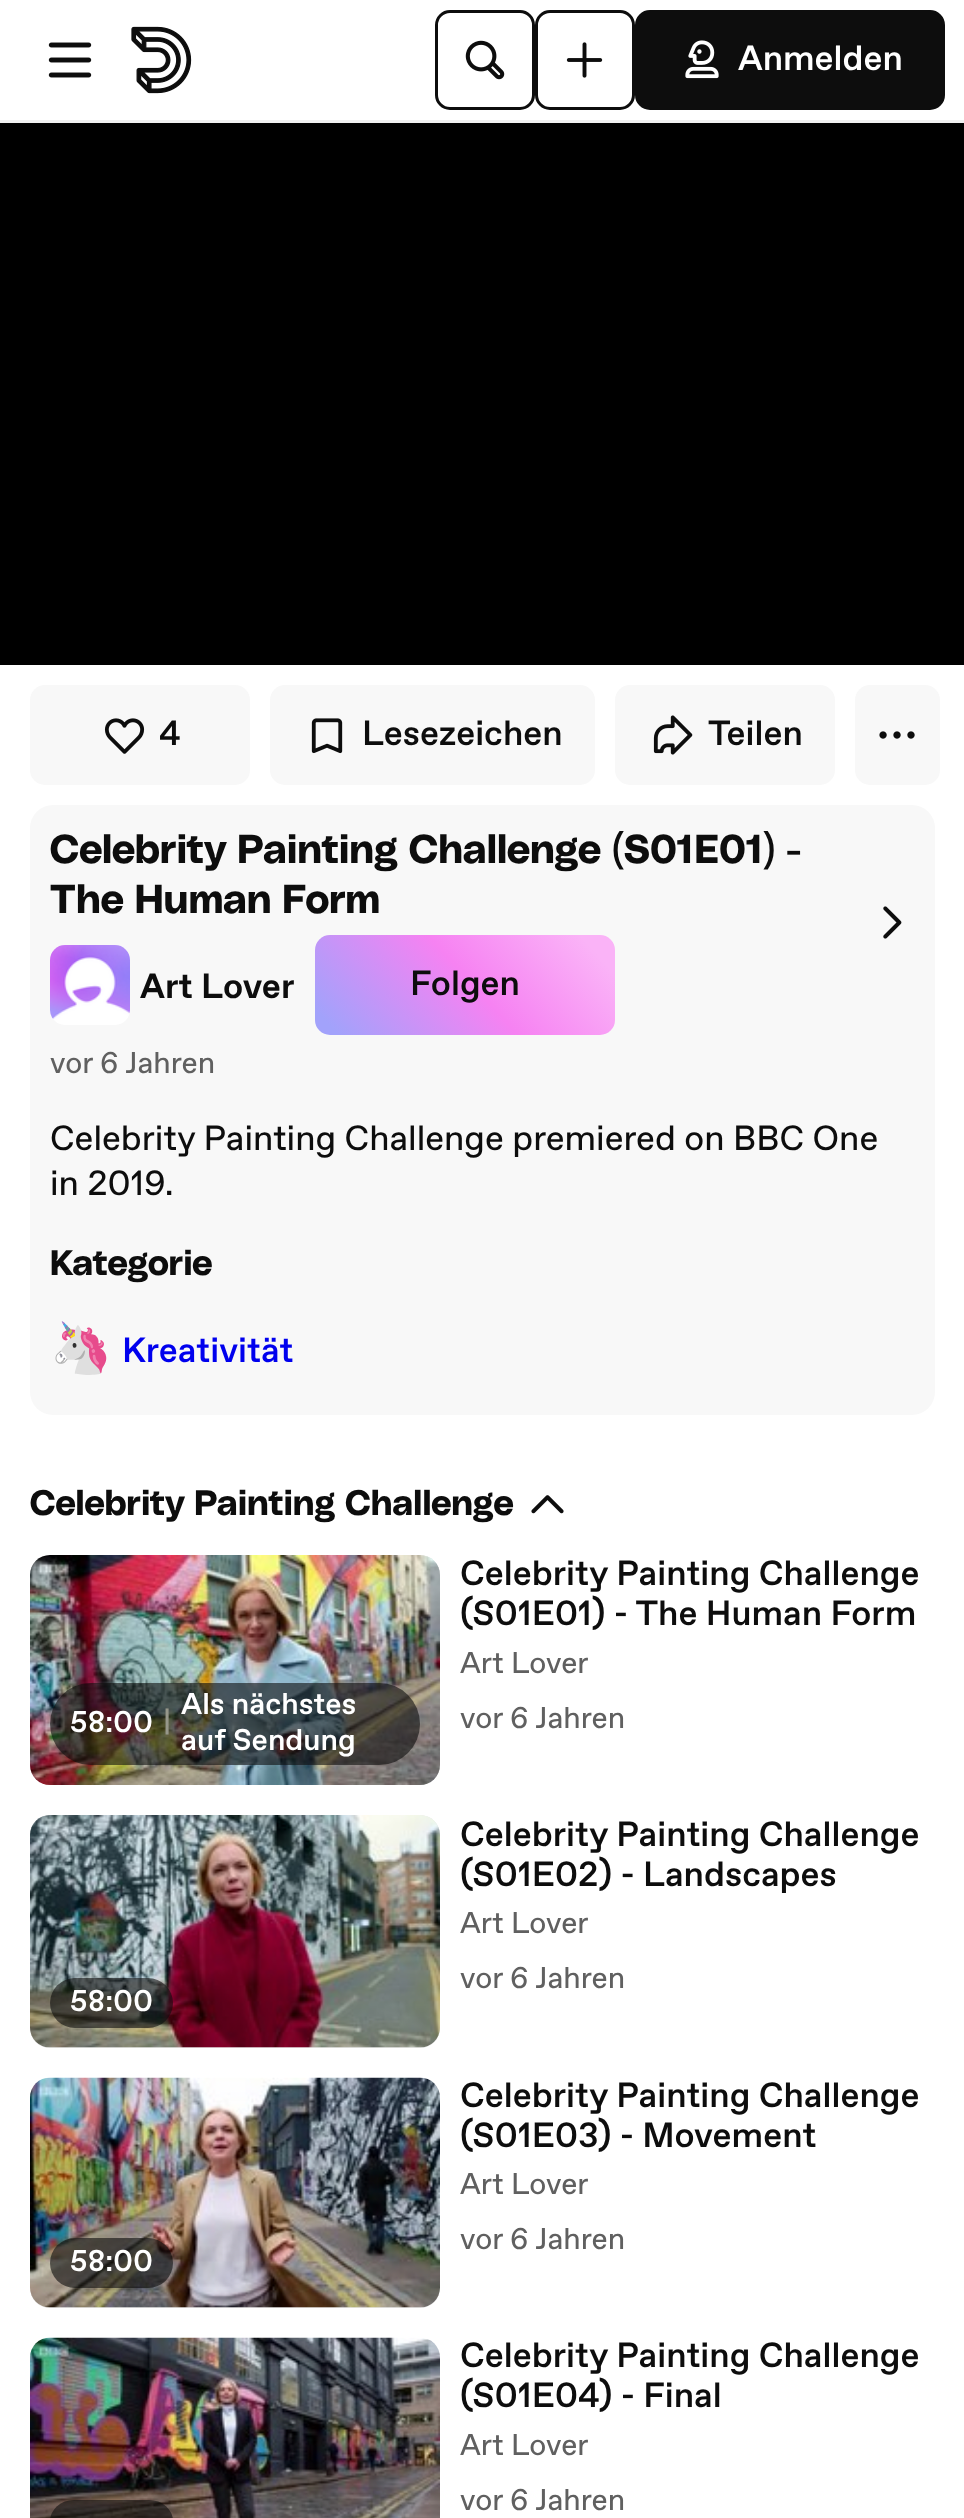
<svg xmlns="http://www.w3.org/2000/svg" width="964" height="2518" viewBox="0 0 964 2518">
  <defs>
    <linearGradient id="g1" gradientUnits="userSpaceOnUse" x1="573" y1="888" x2="357" y2="1082"><stop offset="0.09" stop-color="#fab3f7"/><stop offset="0.48" stop-color="#f682f2"/><stop offset="0.94" stop-color="#a2a2fb"/></linearGradient>
  </defs>
  <rect width="100%" height="100%" fill="#ffffff"/>
  <rect x="0" y="120" width="964" height="3" fill="#f0f0f0"/>
  <image x="48" y="42" width="44" height="36" href="img1.png"/>
  <image x="131" y="26" width="61" height="68" href="img2.png"/>
  <rect x="436.5" y="11.5" width="97" height="97" rx="13.5" fill="none" stroke="#0d0d0d" stroke-width="3"/>
  <image x="465" y="40" width="40" height="40" href="img3.png"/>
  <rect x="536.5" y="11.5" width="97" height="97" rx="13.5" fill="none" stroke="#0d0d0d" stroke-width="3"/>
  <image x="566" y="42" width="37" height="36" href="img4.png"/>
  <rect x="636.5" y="11.5" width="307" height="97" rx="13.5" fill="#0d0d0d" stroke="#0d0d0d" stroke-width="3"/>
  <image x="685" y="40" width="34" height="39" href="img5.png"/>
  <text x="738" y="70" font-family="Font" font-size="35" font-weight="500" fill="#ffffff">Anmelden</text>
  <rect x="0" y="123" width="964" height="542" fill="#000000"/>
  <rect x="30" y="685" width="220" height="100" rx="15" fill="#f8f8f8"/>
  <image x="104" y="718" width="41" height="36" href="img6.png"/>
  <text x="159" y="745" font-family="Font" font-size="35" font-weight="500" fill="#0d0d0d">4</text>
  <rect x="270" y="685" width="325" height="100" rx="15" fill="#f8f8f8"/>
  <image x="311" y="718" width="32" height="36" href="img7.png"/>
  <text x="362" y="745" font-family="Font" font-size="35" font-weight="500" fill="#0d0d0d">Lesezeichen</text>
  <rect x="615" y="685" width="220" height="100" rx="15" fill="#f8f8f8"/>
  <image x="653" y="715" width="40" height="40" href="img8.png"/>
  <text x="708" y="745" font-family="Font" font-size="35" font-weight="500" fill="#0d0d0d">Teilen</text>
  <rect x="855" y="685" width="85" height="100" rx="15" fill="#f8f8f8"/>
  <image x="879" y="731" width="36" height="8" href="img9.png"/>
  <rect x="30" y="805" width="905" height="610" rx="23" fill="#f8f8f8"/>
  <text x="50" y="863" font-family="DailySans" font-size="40" font-weight="bold" letter-spacing="0.4" fill="#0d0d0d">Celebrity Painting Challenge (S01E01) -</text>
  <text x="50" y="913" font-family="DailySans" font-size="40" font-weight="bold" letter-spacing="0.4" fill="#0d0d0d">The Human Form</text>
  <image x="50" y="945" width="80" height="80" href="img10.png"/>
  <text x="140" y="998" font-family="Font" font-size="35" font-weight="bold" fill="#0d0d0d">Art Lover</text>
  <rect x="315" y="935" width="300" height="100" rx="15" fill="url(#g1)"/>
  <text x="410" y="995" font-family="Font" font-size="35" font-weight="500" fill="#0d0d0d">Folgen</text>
  <image x="883" y="906" width="19" height="33" href="img11.png"/>
  <text x="50" y="1073" font-family="Font" font-size="30" fill="#606060">vor 6 Jahren</text>
  <text x="50" y="1150" font-family="Font" font-size="35" fill="#0d0d0d">Celebrity Painting Challenge premiered on BBC One</text>
  <text x="50" y="1195" font-family="Font" font-size="35" fill="#0d0d0d">in 2019.</text>
  <text x="50" y="1275" font-family="DailySans" font-size="35" font-weight="bold" letter-spacing="0.4" fill="#0d0d0d">Kategorie</text>
  <text x="50" y="1365" font-family="Noto Color Emoji" font-size="50" fill="#0000ee">🦄</text>
  <text x="122" y="1362" font-family="Font" font-size="35" font-weight="500" fill="#0000ee">Kreativität</text>
  <text x="30" y="1515" font-family="DailySans" font-size="35" font-weight="bold" letter-spacing="0.4" fill="#0d0d0d">Celebrity Painting Challenge</text>
  <image x="531" y="1495" width="33" height="19" href="img12.png"/>
  <rect x="30" y="1555" width="410" height="230" rx="20" fill="#e8e8e8"/>
  <image x="30" y="1555" width="410" height="230" href="img13.png"/>
  <rect x="50" y="1683" width="370" height="82" rx="41" fill="#0d0d0d" fill-opacity="0.6"/>
  <text x="70" y="1732" font-family="Font" font-size="30" font-weight="500" fill="#ffffff">58:00</text>
  <text x="163" y="1732" font-family="Font" font-size="30" fill="#96978a">|</text>
  <text x="181" y="1714" font-family="Font" font-size="30" font-weight="500" fill="#ffffff">Als nächstes</text>
  <text x="181" y="1750" font-family="Font" font-size="30" font-weight="500" fill="#ffffff">auf Sendung</text>
  <text x="460" y="1585" font-family="Font" font-size="35" font-weight="500" fill="#0d0d0d">Celebrity Painting Challenge</text>
  <text x="460" y="1625" font-family="Font" font-size="35" font-weight="500" fill="#0d0d0d">(S01E01) - The Human Form</text>
  <text x="460" y="1673" font-family="Font" font-size="30" fill="#606060">Art Lover</text>
  <text x="460" y="1728" font-family="Font" font-size="30" fill="#606060">vor 6 Jahren</text>
  <text x="460" y="1846" font-family="Font" font-size="35" font-weight="500" fill="#0d0d0d">Celebrity Painting Challenge</text>
  <text x="460" y="1886" font-family="Font" font-size="35" font-weight="500" fill="#0d0d0d">(S01E02) - Landscapes</text>
  <text x="460" y="1933" font-family="Font" font-size="30" fill="#606060">Art Lover</text>
  <text x="460" y="1988" font-family="Font" font-size="30" fill="#606060">vor 6 Jahren</text>
  <rect x="30" y="1815" width="410" height="233" rx="20" fill="#e8e8e8"/>
  <image x="30" y="1815" width="410" height="233" href="img14.png"/>
  <rect x="50" y="1978" width="123" height="50" rx="25" fill="#0d0d0d" fill-opacity="0.6"/>
  <text x="70" y="2011" font-family="Font" font-size="30" font-weight="500" fill="#ffffff">58:00</text>
  <text x="460" y="2107" font-family="Font" font-size="35" font-weight="500" fill="#0d0d0d">Celebrity Painting Challenge</text>
  <text x="460" y="2147" font-family="Font" font-size="35" font-weight="500" fill="#0d0d0d">(S01E03) - Movement</text>
  <text x="460" y="2194" font-family="Font" font-size="30" fill="#606060">Art Lover</text>
  <text x="460" y="2249" font-family="Font" font-size="30" fill="#606060">vor 6 Jahren</text>
  <rect x="30" y="2078" width="410" height="230" rx="20" fill="#e8e8e8"/>
  <image x="30" y="2077" width="410" height="231" href="img15.png"/>
  <rect x="50" y="2238" width="123" height="50" rx="25" fill="#0d0d0d" fill-opacity="0.6"/>
  <text x="70" y="2271" font-family="Font" font-size="30" font-weight="500" fill="#ffffff">58:00</text>
  <image x="30" y="2337" width="410" height="181" href="img16.png"/>
  <rect x="50" y="2500" width="123" height="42" rx="24" fill="#0d0d0d" fill-opacity="0.6"/>
  <text x="460" y="2367" font-family="Font" font-size="35" font-weight="500" fill="#0d0d0d">Celebrity Painting Challenge</text>
  <text x="460" y="2407" font-family="Font" font-size="35" font-weight="500" fill="#0d0d0d">(S01E04) - Final</text>
  <text x="460" y="2455" font-family="Font" font-size="30" fill="#606060">Art Lover</text>
  <text x="460" y="2510" font-family="Font" font-size="30" fill="#606060">vor 6 Jahren</text>
</svg>
